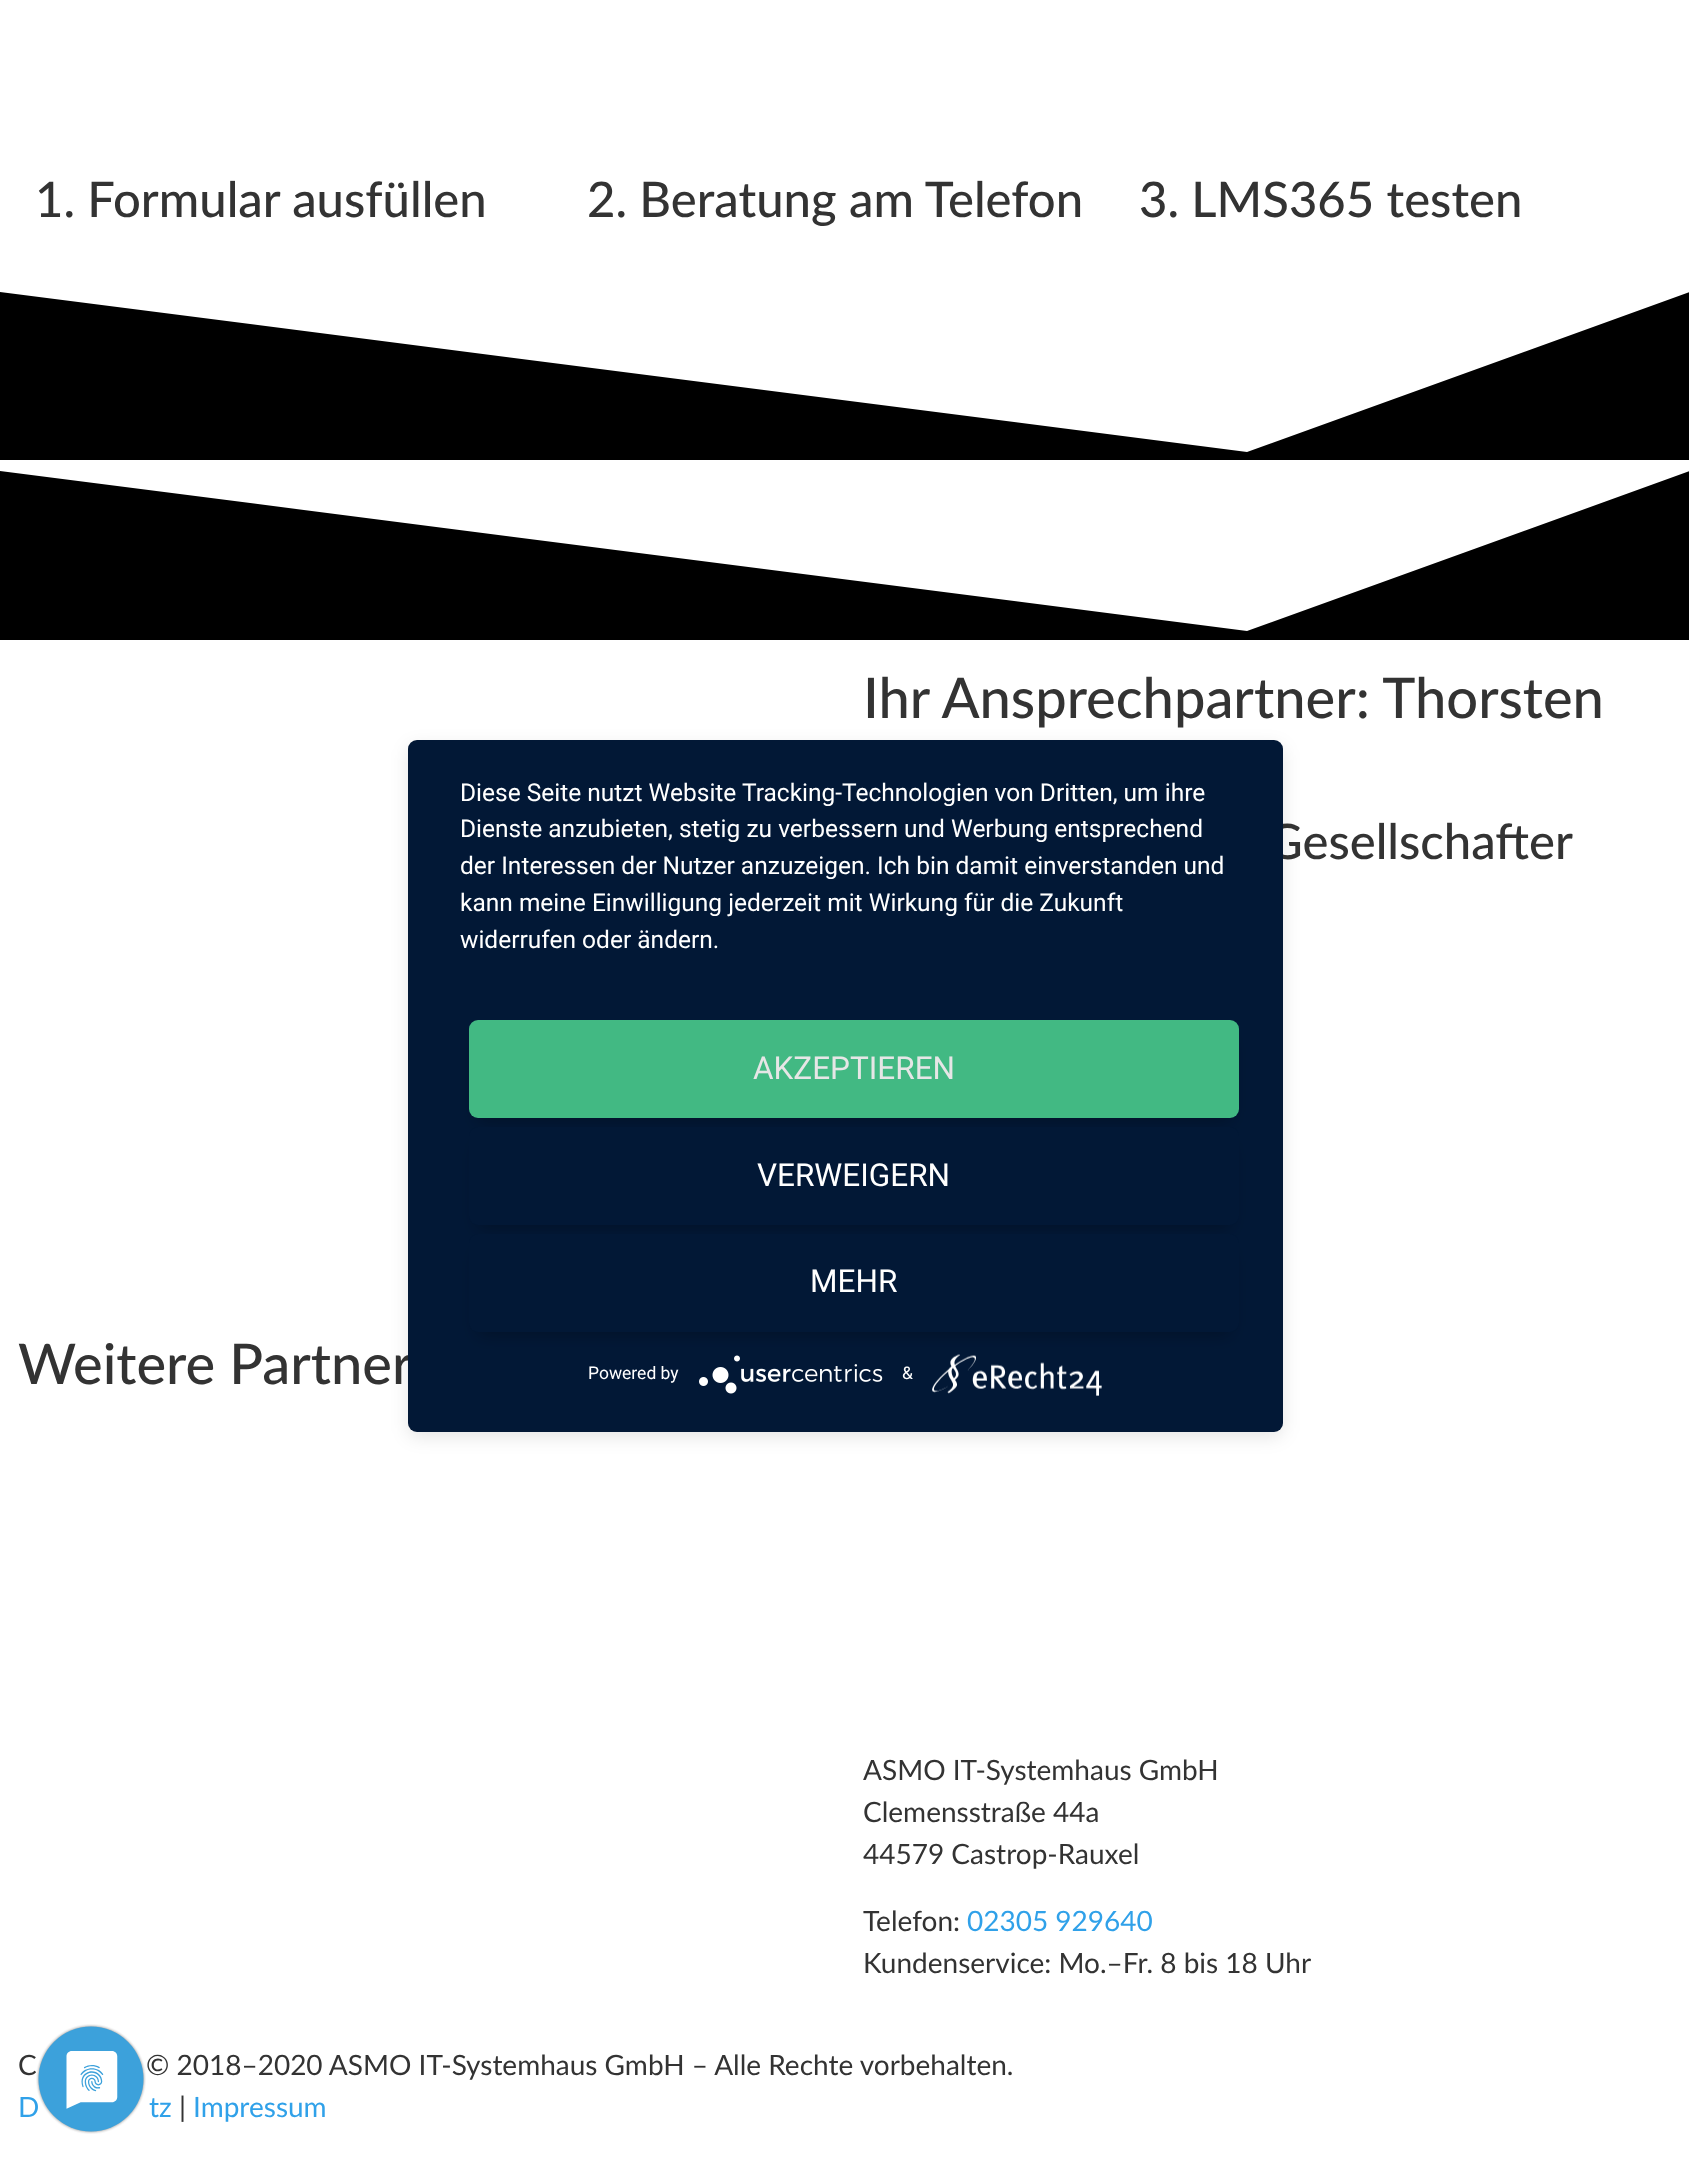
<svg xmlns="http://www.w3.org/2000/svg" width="1689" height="2169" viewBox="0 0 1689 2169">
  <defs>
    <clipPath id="clip1"><rect x="0" y="292" width="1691" height="168"/></clipPath>
    <filter id="blur1" x="-50%" y="-200%" width="200%" height="500%"><feGaussianBlur stdDeviation="9"/></filter>
    <clipPath id="clip2"><rect x="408" y="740" width="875" height="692" rx="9"/></clipPath>
    <filter id="blur2" x="-50%" y="-200%" width="200%" height="500%"><feGaussianBlur stdDeviation="31.5"/></filter>
  </defs>
  <rect width="100%" height="100%" fill="#ffffff"/>
  <text x="35" y="217" font-family="Lato" font-size="49" font-weight="500" fill="#333333">1. Formular ausfüllen</text>
  <text x="587" y="217" font-family="Lato" font-size="49" font-weight="500" fill="#333333">2. Beratung am Telefon</text>
  <text x="1139" y="217" font-family="Lato" font-size="49" font-weight="500" fill="#333333">3. LMS365 testen</text>
  <g clip-path="url(#clip1)">
    <path d="M1247 452L0 292V461H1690V292Z" fill="#000000"/>
  </g>
  <path d="M1247 631L0 471V640H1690V471Z" fill="#000000"/>
  <text x="863" y="718" font-family="Lato" font-size="56" font-weight="500" fill="#333333">Ihr Ansprechpartner: Thorsten</text>
  <text x="1267" y="859" font-family="Lato" font-size="49" font-weight="500" fill="#333333">Gesellschafter</text>
  <text x="18" y="1384" font-family="Lato" font-size="56" font-weight="500" fill="#333333">Weitere Partner</text>
  <text x="863" y="1780" font-family="Lato" font-size="28" fill="#333333">ASMO IT-Systemhaus GmbH</text>
  <text x="863" y="1822" font-family="Lato" font-size="28" fill="#333333">Clemensstraße 44a</text>
  <text x="863" y="1864" font-family="Lato" font-size="28" fill="#333333">44579 Castrop-Rauxel</text>
  <text x="863" y="1931" font-family="Lato" font-size="28" fill="#333333">Telefon:</text>
  <text x="967" y="1931" font-family="Lato" font-size="28" fill="#30a1e9">02305 929640</text>
  <text x="863" y="1973" font-family="Lato" font-size="28" fill="#333333">Kundenservice: Mo.–Fr. 8 bis 18 Uhr</text>
  <text x="18" y="2075" font-family="Lato" font-size="28" fill="#333333">C</text>
  <text x="146" y="2075" font-family="Lato" font-size="28" fill="#333333">© 2018–2020 ASMO IT-Systemhaus GmbH – Alle Rechte vorbehalten.</text>
  <text x="18" y="2117" font-family="Lato" font-size="28" fill="#30a1e9">D</text>
  <text x="149" y="2117" font-family="Lato" font-size="28" fill="#30a1e9">tz</text>
  <text x="179" y="2117" font-family="Lato" font-size="28" fill="#333333">|</text>
  <text x="193" y="2117" font-family="Lato" font-size="28" fill="#30a1e9">Impressum</text>
  <rect x="408" y="746" width="875" height="691" rx="9" fill="#000000" fill-opacity="0.1" filter="url(#blur1)"/>
  <g clip-path="url(#clip2)">
    <rect x="408" y="751" width="875" height="691" fill="#000000" fill-opacity="0.3" filter="url(#blur2)"/>
  </g>
  <rect x="408" y="740" width="875" height="692" rx="9" fill="#021836"/>
  <text x="460" y="801" font-family="Roboto" font-size="24.5" fill="#ffffff">Diese Seite nutzt Website Tracking-Technologien von Dritten, um ihre</text>
  <text x="460" y="837" font-family="Roboto" font-size="24.5" fill="#ffffff">Dienste anzubieten, stetig zu verbessern und Werbung entsprechend</text>
  <text x="460" y="874" font-family="Roboto" font-size="24.5" fill="#ffffff">der Interessen der Nutzer anzuzeigen. Ich bin damit einverstanden und</text>
  <text x="460" y="911" font-family="Roboto" font-size="24.5" fill="#ffffff">kann meine Einwilligung jederzeit mit Wirkung für die Zukunft</text>
  <text x="460" y="948" font-family="Roboto" font-size="24.5" fill="#ffffff">widerrufen oder ändern.</text>
  <rect x="478" y="1040" width="752" height="80" fill="#000000" fill-opacity="0.3" filter="url(#blur1)"/>
  <rect x="469" y="1020" width="770" height="98" rx="9" fill="#42b983"/>
  <text x="753" y="1079" font-family="Roboto" font-size="31.5" fill="#e6e6e6">AKZEPTIEREN</text>
  <rect x="478" y="1146" width="752" height="81" fill="#000000" fill-opacity="0.3" filter="url(#blur1)"/>
  <rect x="469" y="1127" width="770" height="98" rx="9" fill="#021836"/>
  <text x="757" y="1186" font-family="Roboto" font-size="31.5" fill="#ffffff">VERWEIGERN</text>
  <rect x="478" y="1253" width="752" height="81" fill="#000000" fill-opacity="0.3" filter="url(#blur1)"/>
  <rect x="469" y="1234" width="770" height="98" rx="9" fill="#021836"/>
  <text x="810" y="1292" font-family="Roboto" font-size="31.5" fill="#ffffff">MEHR</text>
  <text x="588" y="1379" font-family="Roboto" font-size="17.5" fill="#ffffff">Powered by</text>
  <image x="699" y="1355" width="184" height="39" href="img1.png"/>
  <text x="902" y="1379" font-family="Roboto" font-size="17.5" fill="#ffffff">&amp;</text>
  <image x="932" y="1354" width="170" height="42" href="img2.png"/>
  <image x="36" y="2024" width="110" height="110" href="img3.png"/>
</svg>
